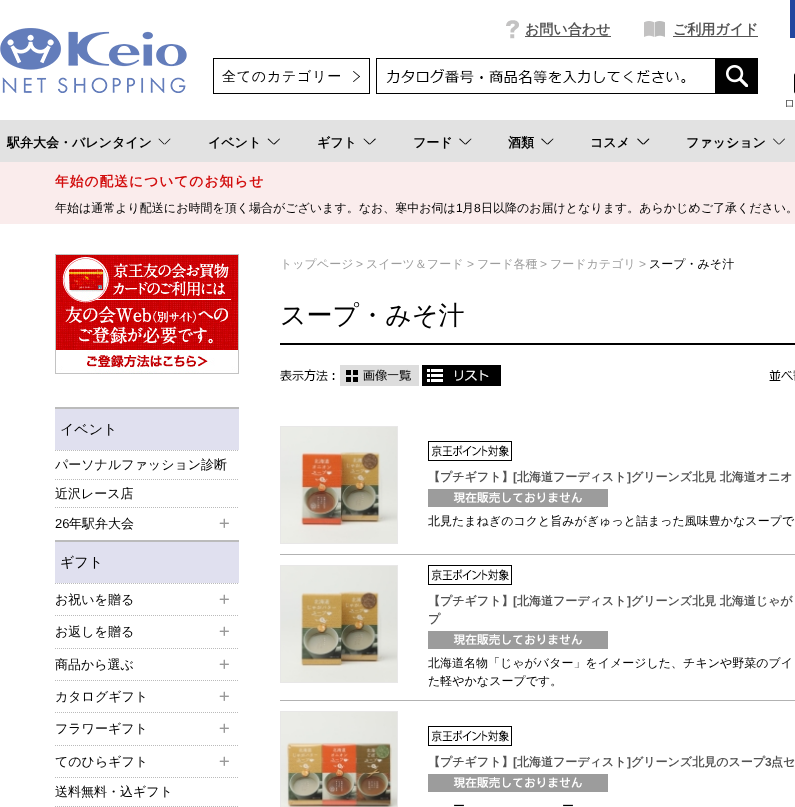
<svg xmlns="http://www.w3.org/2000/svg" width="795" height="807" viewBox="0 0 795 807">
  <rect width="100%" height="100%" fill="#ffffff"/>
  <image x="0" y="28" width="187" height="65" href="img1.png"/>
  <image x="506" y="20" width="13" height="19" href="img2.png"/>
  <rect x="525" y="36" width="86" height="1" fill="#535353"/>
  <text x="525" y="34" font-family="WenQuanYi Zen Hei" font-size="14" font-weight="bold" fill="#535353">お問い合わせ</text>
  <image x="644" y="21" width="21" height="16" href="img3.png"/>
  <text x="673" y="34" font-family="WenQuanYi Zen Hei" font-size="14" font-weight="bold" fill="#535353">ご利用ガイド</text>
  <rect x="673" y="36" width="85" height="1" fill="#535353"/>
  <image x="353" y="71" width="7" height="11" href="img4.png"/>
  <rect x="213.5" y="58.5" width="156" height="35" fill="none" stroke="#010101"/>
  <text x="222" y="81" font-family="WenQuanYi Zen Hei" font-size="14" font-weight="500" letter-spacing="0.75" fill="#000000">全てのカテゴリー</text>
  <image x="386" y="69" width="300" height="15" href="img5.png"/>
  <rect x="376.5" y="58.5" width="339" height="35" fill="none" stroke="#010101"/>
  <image x="716" y="58" width="42" height="36" href="img6.png"/>
  <rect x="790" y="0" width="5" height="38" fill="#22469e"/>
  <image x="794" y="73" width="1" height="21" href="img7.png"/>
  <text x="784" y="107" font-family="WenQuanYi Zen Hei" font-size="11" font-weight="500" fill="#535353">ロ</text>
  <rect x="0" y="120" width="795" height="42" fill="#e2e2e2"/>
  <text x="7" y="147" font-family="WenQuanYi Zen Hei" font-size="13" font-weight="bold" fill="#000000">駅弁大会・バレンタイン</text>
  <path d="M170.5 139L165 144.5L164.5 144L170 138.5Z" fill="#010101"/>
  <path d="M159 138.5L164.5 144L164 144.5L158.5 139Z" fill="#010101"/>
  <text x="208" y="147" font-family="WenQuanYi Zen Hei" font-size="13" font-weight="bold" fill="#000000">イベント</text>
  <path d="M280 139L274.5 144.5L273.5 144L279.5 138.5Z" fill="#010101"/>
  <path d="M268.5 138.5L274 144L273.5 144.5L267.5 139Z" fill="#010101"/>
  <text x="317" y="147" font-family="WenQuanYi Zen Hei" font-size="13" font-weight="bold" fill="#000000">ギフト</text>
  <path d="M376 139L370 144.5L369.5 144L375 138.5Z" fill="#010101"/>
  <path d="M364 138.5L370 144L369 144.5L363.5 139Z" fill="#010101"/>
  <text x="413" y="147" font-family="WenQuanYi Zen Hei" font-size="13" font-weight="bold" fill="#000000">フード</text>
  <path d="M471.5 139L466 144.5L465 144L471 138.5Z" fill="#010101"/>
  <path d="M460 138.5L465.5 144L465 144.5L459 139Z" fill="#010101"/>
  <text x="508" y="147" font-family="WenQuanYi Zen Hei" font-size="13" font-weight="bold" fill="#000000">酒類</text>
  <path d="M553.5 139L548 144.5L547 144L553 138.5Z" fill="#010101"/>
  <path d="M542 138.5L547.5 144L547 144.5L541 139Z" fill="#010101"/>
  <text x="590" y="147" font-family="WenQuanYi Zen Hei" font-size="13" font-weight="bold" fill="#000000">コスメ</text>
  <path d="M649.5 139L644 144.5L643 144L648.5 138.5Z" fill="#010101"/>
  <path d="M638 138.5L643.5 144L642.5 144.5L637 139Z" fill="#010101"/>
  <text x="686" y="147" font-family="WenQuanYi Zen Hei" font-size="13" font-weight="bold" fill="#000000">ファッション</text>
  <path d="M785 139L779.5 144.5L779 144L784.5 138.5ZM773.5 138.5L779 144L778.5 144.5L773 139Z" fill="#010101"/>
  <rect x="0" y="162" width="795" height="62" fill="#faecec"/>
  <text x="55" y="186" font-family="WenQuanYi Zen Hei" font-size="13.75" font-weight="bold" letter-spacing="1" fill="#d20d0d">年始の配送についてのお知らせ</text>
  <text x="55" y="212" font-family="WenQuanYi Zen Hei" font-size="12" font-weight="500" fill="#000000">年始は通常より配送にお時間を頂く場合がございます。なお、寒中お伺は</text>
  <text x="456" y="212" font-family="Liberation Sans" font-size="12" fill="#000000">1</text>
  <text x="462" y="212" font-family="WenQuanYi Zen Hei" font-size="12" font-weight="500" fill="#000000">月</text>
  <text x="474" y="212" font-family="Liberation Sans" font-size="12" fill="#000000">8</text>
  <text x="481" y="212" font-family="WenQuanYi Zen Hei" font-size="12" font-weight="500" fill="#000000">日以降のお届けとなります。あらかじめご了承ください。</text>
  <image x="55" y="254" width="184" height="120" href="img8.png"/>
  <rect x="55" y="409" width="184" height="41" fill="#e0e0ef"/>
  <rect x="55" y="407" width="184" height="2" fill="#bbbbbb"/>
  <text x="60" y="434" font-family="WenQuanYi Zen Hei" font-size="14" font-weight="500" fill="#000000">イベント</text>
  <path d="M55 450.5H239" fill="none" stroke="#bbbbbb" stroke-dasharray="1 1"/>
  <text x="55" y="469" font-family="WenQuanYi Zen Hei" font-size="13" font-weight="500" fill="#000000">パーソナルファッション診断</text>
  <path d="M55 479.5H239" fill="none" stroke="#bbbbbb" stroke-dasharray="1 1"/>
  <text x="55" y="498" font-family="WenQuanYi Zen Hei" font-size="13" font-weight="500" fill="#000000">近沢レース店</text>
  <path d="M55 507.5H239" fill="none" stroke="#bbbbbb" stroke-dasharray="1 1"/>
  <image x="219" y="518" width="10" height="10" href="img9.png"/>
  <text x="55" y="528" font-family="Liberation Sans" font-size="13" fill="#000000">26</text>
  <text x="69" y="528" font-family="WenQuanYi Zen Hei" font-size="13" font-weight="500" fill="#000000">年駅弁大会</text>
  <rect x="55" y="542" width="184" height="41" fill="#e0e0ef"/>
  <rect x="55" y="540" width="184" height="2" fill="#bbbbbb"/>
  <text x="60" y="567" font-family="WenQuanYi Zen Hei" font-size="14" font-weight="500" fill="#000000">ギフト</text>
  <path d="M55 583.5H239" fill="none" stroke="#bbbbbb" stroke-dasharray="1 1"/>
  <image x="219" y="594" width="10" height="10" href="img9.png"/>
  <text x="55" y="604" font-family="WenQuanYi Zen Hei" font-size="13" font-weight="500" fill="#000000">お祝いを贈る</text>
  <path d="M55 615.5H239" fill="none" stroke="#bbbbbb" stroke-dasharray="1 1"/>
  <image x="219" y="626" width="10" height="10" href="img9.png"/>
  <text x="55" y="636" font-family="WenQuanYi Zen Hei" font-size="13" font-weight="500" fill="#000000">お返しを贈る</text>
  <path d="M55 648.5H239" fill="none" stroke="#bbbbbb" stroke-dasharray="1 1"/>
  <image x="219" y="659" width="10" height="10" href="img9.png"/>
  <text x="55" y="669" font-family="WenQuanYi Zen Hei" font-size="13" font-weight="500" fill="#000000">商品から選ぶ</text>
  <path d="M55 680.5H239" fill="none" stroke="#bbbbbb" stroke-dasharray="1 1"/>
  <image x="219" y="691" width="10" height="10" href="img9.png"/>
  <text x="55" y="701" font-family="WenQuanYi Zen Hei" font-size="13" font-weight="500" fill="#000000">カタログギフト</text>
  <path d="M55 712.5H239" fill="none" stroke="#bbbbbb" stroke-dasharray="1 1"/>
  <image x="219" y="723" width="10" height="10" href="img9.png"/>
  <text x="55" y="733" font-family="WenQuanYi Zen Hei" font-size="13" font-weight="500" fill="#000000">フラワーギフト</text>
  <path d="M55 745.5H239" fill="none" stroke="#bbbbbb" stroke-dasharray="1 1"/>
  <image x="219" y="756" width="10" height="10" href="img9.png"/>
  <text x="55" y="766" font-family="WenQuanYi Zen Hei" font-size="13" font-weight="500" fill="#000000">てのひらギフト</text>
  <path d="M55 777.5H239" fill="none" stroke="#bbbbbb" stroke-dasharray="1 1"/>
  <text x="55" y="796" font-family="WenQuanYi Zen Hei" font-size="13" font-weight="500" fill="#000000">送料無料・込ギフト</text>
  <path d="M55 806.5H239" fill="none" stroke="#bbbbbb" stroke-dasharray="1 1"/>
  <text x="280" y="268" font-family="WenQuanYi Zen Hei" font-size="12" font-weight="500" fill="#9c9c9c">トップページ</text>
  <text x="356" y="268" font-family="Liberation Sans" font-size="12" fill="#9c9c9c">&gt;</text>
  <text x="366" y="268" font-family="WenQuanYi Zen Hei" font-size="12" font-weight="500" fill="#9c9c9c">スイーツ＆フード</text>
  <text x="467" y="268" font-family="Liberation Sans" font-size="12" fill="#9c9c9c">&gt;</text>
  <text x="477" y="268" font-family="WenQuanYi Zen Hei" font-size="12" font-weight="500" fill="#9c9c9c">フード各種</text>
  <text x="540" y="268" font-family="Liberation Sans" font-size="12" fill="#9c9c9c">&gt;</text>
  <text x="550" y="268" font-family="WenQuanYi Zen Hei" font-size="12" font-weight="500" fill="#9c9c9c">フードカテゴリ</text>
  <text x="639" y="268" font-family="Liberation Sans" font-size="12" fill="#9c9c9c">&gt;</text>
  <text x="649" y="268" font-family="WenQuanYi Zen Hei" font-size="12" font-weight="500" fill="#000000">スープ・みそ汁</text>
  <rect x="280" y="343" width="515" height="2" fill="#000000"/>
  <text x="280" y="324" font-family="WenQuanYi Zen Hei" font-size="26" font-weight="500" fill="#000000">スープ・みそ汁</text>
  <image x="280" y="369" width="55" height="12" href="img10.png"/>
  <image x="340" y="365" width="79" height="21" href="img11.png"/>
  <image x="422" y="365" width="79" height="21" href="img12.png"/>
  <image x="769" y="370" width="26" height="11" href="img13.png"/>
  <rect x="280" y="554" width="515" height="1" fill="#b2b2b2"/>
  <rect x="280.5" y="426.5" width="117" height="117" fill="none" stroke="#e8e7e7"/>
  <image x="281" y="427" width="116" height="116" href="img14.png"/>
  <image x="428" y="441" width="84" height="20" href="img15.png"/>
  <text x="428" y="481" font-family="WenQuanYi Zen Hei" font-size="12" font-weight="bold" fill="#535353">【プチギフト】</text>
  <text x="513" y="481" font-family="Liberation Sans" font-size="12" font-weight="bold" fill="#535353">[</text>
  <text x="517" y="481" font-family="WenQuanYi Zen Hei" font-size="12" font-weight="bold" fill="#535353">北海道フーディスト</text>
  <text x="627" y="481" font-family="Liberation Sans" font-size="12" font-weight="bold" fill="#535353">]</text>
  <text x="631" y="481" font-family="WenQuanYi Zen Hei" font-size="12" font-weight="bold" fill="#535353">グリーンズ北見 北海道オニオ</text>
  <image x="428" y="489" width="180" height="18" href="img16.png"/>
  <text x="428" y="525" font-family="WenQuanYi Zen Hei" font-size="12" font-weight="500" fill="#000000">北見たまねぎのコクと旨みがぎゅっと詰まった風味豊かなスープで</text>
  <rect x="280" y="700" width="515" height="1" fill="#b2b2b2"/>
  <rect x="280.5" y="565.5" width="117" height="117" fill="none" stroke="#e8e7e7"/>
  <image x="281" y="566" width="116" height="116" href="img17.png"/>
  <image x="428" y="565" width="84" height="20" href="img15.png"/>
  <text x="428" y="605" font-family="WenQuanYi Zen Hei" font-size="12" font-weight="bold" fill="#535353">【プチギフト】</text>
  <text x="513" y="605" font-family="Liberation Sans" font-size="12" font-weight="bold" fill="#535353">[</text>
  <text x="517" y="605" font-family="WenQuanYi Zen Hei" font-size="12" font-weight="bold" fill="#535353">北海道フーディスト</text>
  <text x="627" y="605" font-family="Liberation Sans" font-size="12" font-weight="bold" fill="#535353">]</text>
  <text x="631" y="605" font-family="WenQuanYi Zen Hei" font-size="12" font-weight="bold" fill="#535353">グリーンズ北見 北海道じゃが</text>
  <text x="428" y="623" font-family="WenQuanYi Zen Hei" font-size="12" font-weight="bold" fill="#535353">プ</text>
  <image x="428" y="631" width="180" height="18" href="img16.png"/>
  <text x="428" y="667" font-family="WenQuanYi Zen Hei" font-size="12" font-weight="500" fill="#000000">北海道名物「じゃがバター」をイメージした、チキンや野菜のブイ</text>
  <text x="428" y="685" font-family="WenQuanYi Zen Hei" font-size="12" font-weight="500" fill="#000000">た軽やかなスープです。</text>
  <rect x="280.5" y="711.5" width="117" height="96" fill="none" stroke="#e8e7e7"/>
  <image x="281" y="712" width="116" height="95" href="img18.png"/>
  <image x="428" y="726" width="84" height="20" href="img15.png"/>
  <text x="428" y="766" font-family="WenQuanYi Zen Hei" font-size="12" font-weight="bold" fill="#535353">【プチギフト】</text>
  <text x="513" y="766" font-family="Liberation Sans" font-size="12" font-weight="bold" fill="#535353">[</text>
  <text x="517" y="766" font-family="WenQuanYi Zen Hei" font-size="12" font-weight="bold" fill="#535353">北海道フーディスト</text>
  <text x="627" y="766" font-family="Liberation Sans" font-size="12" font-weight="bold" fill="#535353">]</text>
  <text x="631" y="766" font-family="WenQuanYi Zen Hei" font-size="12" font-weight="bold" fill="#535353">グリーンズ北見のスープ</text>
  <text x="765" y="766" font-family="Liberation Sans" font-size="12" font-weight="bold" fill="#535353">3</text>
  <text x="771" y="766" font-family="WenQuanYi Zen Hei" font-size="12" font-weight="bold" fill="#535353">点セ</text>
  <image x="428" y="774" width="180" height="18" href="img16.png"/>
  <text x="453" y="810" font-family="WenQuanYi Zen Hei" font-size="12" font-weight="500" fill="#000000">ー</text>
  <text x="562" y="810" font-family="WenQuanYi Zen Hei" font-size="12" font-weight="500" fill="#000000">ー</text>
</svg>
